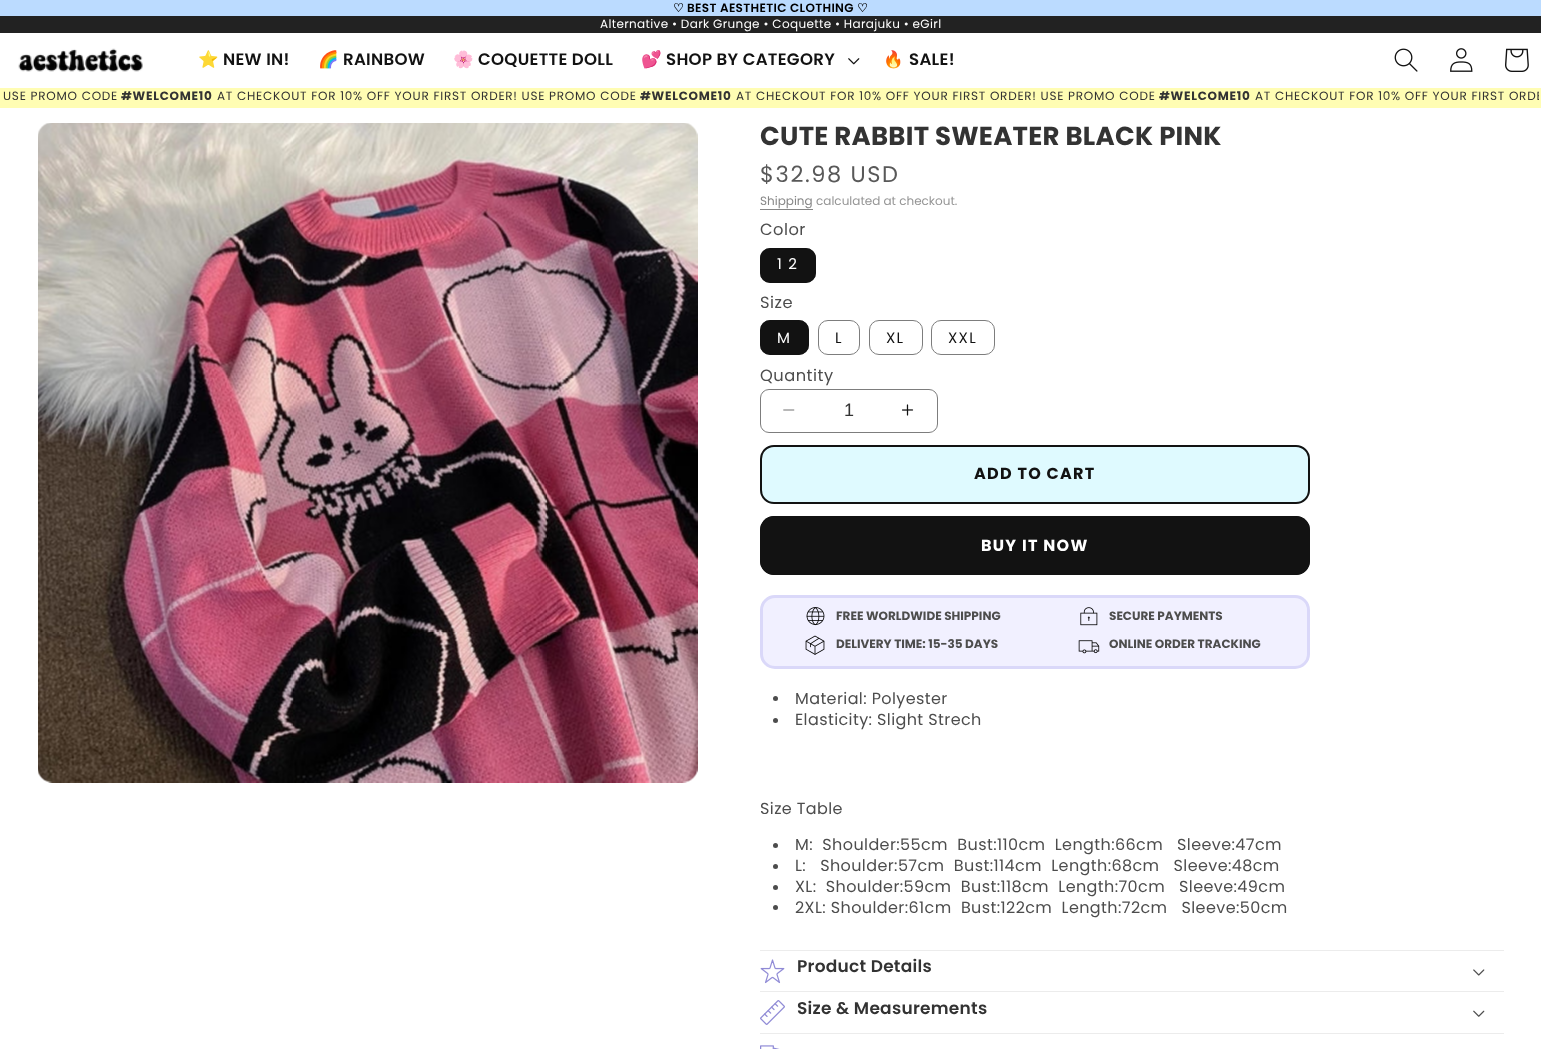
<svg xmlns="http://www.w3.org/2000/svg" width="1541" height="1049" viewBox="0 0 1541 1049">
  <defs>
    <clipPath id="clip1"><rect x="3" y="90" width="1536" height="15"/></clipPath>
  </defs>
  <rect width="100%" height="100%" fill="#ffffff"/>
  <rect x="0" y="0" width="1541" height="16" fill="#bbdbff"/>
  <text x="673" y="12" font-family="DejaVu Sans" font-size="12" font-weight="bold" letter-spacing="0.35" fill="#000000">♡</text>
  <text x="687" y="12" font-family="Poppins" font-size="12" font-weight="600" letter-spacing="0.35" fill="#000000">BEST AESTHETIC CLOTHING</text>
  <text x="857" y="12" font-family="DejaVu Sans" font-size="12" font-weight="bold" letter-spacing="0.35" fill="#000000">♡</text>
  <rect x="0" y="16" width="1541" height="17" fill="#222222"/>
  <text x="600" y="28" font-family="Poppins" font-size="12" letter-spacing="0.35" fill="#ffffff">Alternative • Dark Grunge • Coquette • Harajuku • eGirl</text>
  <image x="18" y="48" width="125" height="24" href="img1.png"/>
  <text x="198" y="65" font-family="Noto Color Emoji" font-size="16.6" font-weight="bold" letter-spacing="0.3" fill="#121212">⭐</text>
  <text x="223" y="65" font-family="Poppins" font-size="16.6" font-weight="600" letter-spacing="0.3" fill="#121212">NEW IN!</text>
  <text x="318" y="65" font-family="Noto Color Emoji" font-size="16.6" font-weight="bold" letter-spacing="0.3" fill="#121212">🌈</text>
  <text x="343" y="65" font-family="Poppins" font-size="16.6" font-weight="600" letter-spacing="0.3" fill="#121212">RAINBOW</text>
  <text x="453" y="65" font-family="Noto Color Emoji" font-size="16.6" font-weight="bold" letter-spacing="0.3" fill="#121212">🌸</text>
  <text x="478" y="65" font-family="Poppins" font-size="16.6" font-weight="600" letter-spacing="0.3" fill="#121212">COQUETTE DOLL</text>
  <text x="641" y="65" font-family="Noto Color Emoji" font-size="16.6" font-weight="bold" letter-spacing="0.3" fill="#121212">💕</text>
  <text x="666" y="65" font-family="Poppins" font-size="16.6" font-weight="600" letter-spacing="0.3" fill="#121212">SHOP BY CATEGORY</text>
  <image x="848" y="58" width="12" height="7" href="img2.png"/>
  <text x="883" y="65" font-family="Noto Color Emoji" font-size="16.6" font-weight="bold" letter-spacing="0.3" fill="#121212">🔥</text>
  <text x="909" y="65" font-family="Poppins" font-size="16.6" font-weight="600" letter-spacing="0.3" fill="#121212">SALE!</text>
  <image x="1394" y="48" width="24" height="24" href="img3.png"/>
  <image x="1450" y="48" width="23" height="24" href="img4.png"/>
  <image x="1505" y="48" width="24" height="24" href="img5.png"/>
  <rect x="0" y="88" width="1541" height="20" fill="#fffdb3"/>
  <text x="3" y="100" font-family="Poppins" font-size="12" letter-spacing="0.75" fill="#333333">USE PROMO CODE</text>
  <text x="121" y="100" font-family="Poppins" font-size="12" font-weight="bold" letter-spacing="0.75" fill="#333333">#WELCOME10</text>
  <text x="217" y="100" font-family="Poppins" font-size="12" letter-spacing="0.75" fill="#333333">AT CHECKOUT FOR 10% OFF YOUR FIRST ORDER! USE PROMO CODE</text>
  <text x="640" y="100" font-family="Poppins" font-size="12" font-weight="bold" letter-spacing="0.75" fill="#333333">#WELCOME10</text>
  <text x="736" y="100" font-family="Poppins" font-size="12" letter-spacing="0.75" fill="#333333">AT CHECKOUT FOR 10% OFF YOUR FIRST ORDER! USE PROMO CODE</text>
  <text x="1159" y="100" font-family="Poppins" font-size="12" font-weight="bold" letter-spacing="0.75" fill="#333333">#WELCOME10</text>
  <g clip-path="url(#clip1)">
    <text x="1255" y="100" font-family="Poppins" font-size="12" letter-spacing="0.75" fill="#333333">AT CHECKOUT FOR 10% OFF YOUR FIRST ORDE</text>
  </g>
  <image x="38" y="123" width="660" height="660" href="img6.png"/>
  <text x="760" y="145" font-family="Poppins" font-size="26" font-weight="bold" letter-spacing="0.25" fill="#333333">CUTE RABBIT SWEATER BLACK PINK</text>
  <text x="760" y="182" font-family="Poppins" font-size="22.5" letter-spacing="1.6" fill="#595959">$32.98 USD</text>
  <text x="760" y="205" font-family="Poppins" font-size="12" fill="#868686">Shipping</text>
  <rect x="760" y="209" width="53" height="1" fill="#868686"/>
  <text x="816" y="205" font-family="Poppins" font-size="12" fill="#959595">calculated at checkout.</text>
  <text x="760" y="235" font-family="Poppins" font-size="16.25" letter-spacing="0.5" fill="#4d4d4d">Color</text>
  <rect x="760" y="248" width="56" height="35" rx="10" fill="#121212"/>
  <rect x="760.5" y="248.5" width="55" height="34" rx="9.5" fill="none" stroke="#121212" stroke-opacity="0.55"/>
  <text x="777" y="269" font-family="Poppins" font-size="15" letter-spacing="1.25" fill="#ffffff">1 2</text>
  <text x="760" y="308" font-family="Poppins" font-size="16.25" letter-spacing="0.5" fill="#4d4d4d">Size</text>
  <rect x="760" y="320" width="49" height="35" rx="10" fill="#121212"/>
  <rect x="760.5" y="320.5" width="48" height="34" rx="9.5" fill="none" stroke="#121212" stroke-opacity="0.55"/>
  <text x="777" y="343" font-family="Poppins" font-size="15" letter-spacing="1.25" fill="#ffffff">M</text>
  <rect x="818.5" y="320.5" width="41" height="34" rx="9.5" fill="none" stroke="#7d7d7d"/>
  <text x="835" y="343" font-family="Poppins" font-size="15" letter-spacing="1.25" fill="#121212">L</text>
  <rect x="869.5" y="320.5" width="53" height="34" rx="9.5" fill="none" stroke="#7d7d7d"/>
  <text x="886" y="343" font-family="Poppins" font-size="15" letter-spacing="1.25" fill="#121212">XL</text>
  <rect x="931.5" y="320.5" width="63" height="34" rx="9.5" fill="none" stroke="#7d7d7d"/>
  <text x="948" y="343" font-family="Poppins" font-size="15" letter-spacing="1.25" fill="#121212">XXL</text>
  <text x="760" y="381" font-family="Poppins" font-size="16.25" letter-spacing="0.5" fill="#4d4d4d">Quantity</text>
  <image x="783" y="409" width="12" height="2" href="img7.png"/>
  <image x="902" y="404" width="12" height="12" href="img8.png"/>
  <rect x="760.5" y="389.5" width="177" height="43" rx="8.5" fill="none" stroke="#7d7d7d"/>
  <text x="844" y="416" font-family="Liberation Sans" font-size="18" fill="#333333">1</text>
  <rect x="760" y="445" width="550" height="59" rx="14" fill="#dffaff"/>
  <rect x="760.5" y="445.5" width="549" height="58" rx="13.5" fill="none" stroke="#ffffff"/>
  <rect x="761" y="446" width="548" height="57" rx="13" fill="none" stroke="#121212" stroke-width="2"/>
  <text x="974" y="479" font-family="Poppins" font-size="16" font-weight="bold" letter-spacing="1.25" fill="#121212">ADD TO CART</text>
  <rect x="760" y="516" width="550" height="59" rx="14" fill="#121212"/>
  <rect x="760.5" y="516.5" width="549" height="58" rx="13.5" fill="none" stroke="#121212"/>
  <text x="981" y="551" font-family="Poppins" font-size="16" font-weight="bold" letter-spacing="1.25" fill="#ffffff">BUY IT NOW</text>
  <rect x="761.5" y="596.5" width="547" height="71" rx="13.5" fill="#f1f0ff" stroke="#dad8f9" stroke-width="3"/>
  <image x="806" y="607" width="19" height="19" href="img9.png"/>
  <text x="836" y="620" font-family="Poppins" font-size="12" font-weight="bold" fill="#4d4d4d">FREE WORLDWIDE SHIPPING</text>
  <image x="805" y="635" width="20" height="20" href="img10.png"/>
  <text x="836" y="648" font-family="Poppins" font-size="12" font-weight="bold" fill="#4d4d4d">DELIVERY TIME: 15-35 DAYS</text>
  <image x="1080" y="607" width="18" height="19" href="img11.png"/>
  <text x="1109" y="620" font-family="Poppins" font-size="12" font-weight="bold" fill="#4d4d4d">SECURE PAYMENTS</text>
  <image x="1078" y="640" width="22" height="14" href="img12.png"/>
  <text x="1109" y="648" font-family="Poppins" font-size="12" font-weight="bold" fill="#4d4d4d">ONLINE ORDER TRACKING</text>
  <circle cx="775.5" cy="698.5" r="2.5" fill="#4d4d4d"/>
  <text x="795" y="704" font-family="Poppins" font-size="16" letter-spacing="0.4" fill="#4d4d4d">Material: Polyester</text>
  <circle cx="775.5" cy="720.5" r="2.5" fill="#4d4d4d"/>
  <text x="795" y="725" font-family="Poppins" font-size="16" letter-spacing="0.4" fill="#4d4d4d">Elasticity: Slight Strech</text>
  <text x="760" y="814" font-family="Poppins" font-size="16" letter-spacing="0.4" fill="#4d4d4d">Size Table</text>
  <circle cx="775.5" cy="845.5" r="2.5" fill="#4d4d4d"/>
  <text x="795" y="850" font-family="Poppins" font-size="16" letter-spacing="0.4" fill="#4d4d4d" xml:space="preserve">M:  Shoulder:55cm  Bust:110cm  Length:66cm   Sleeve:47cm</text>
  <circle cx="775.5" cy="866.5" r="2.5" fill="#4d4d4d"/>
  <text x="795" y="871" font-family="Poppins" font-size="16" letter-spacing="0.4" fill="#4d4d4d" xml:space="preserve">L:   Shoulder:57cm  Bust:114cm  Length:68cm   Sleeve:48cm</text>
  <circle cx="775.5" cy="887.5" r="2.5" fill="#4d4d4d"/>
  <text x="795" y="892" font-family="Poppins" font-size="16" letter-spacing="0.4" fill="#4d4d4d" xml:space="preserve">XL:  Shoulder:59cm  Bust:118cm  Length:70cm   Sleeve:49cm</text>
  <circle cx="775.5" cy="907.5" r="2.5" fill="#4d4d4d"/>
  <text x="795" y="913" font-family="Poppins" font-size="16" letter-spacing="0.4" fill="#4d4d4d" xml:space="preserve">2XL: Shoulder:61cm  Bust:122cm  Length:72cm   Sleeve:50cm</text>
  <rect x="760" y="950" width="744" height="1" fill="#ececec"/>
  <rect x="760" y="991" width="744" height="1" fill="#ececec"/>
  <image x="760" y="959" width="25" height="25" href="img13.png"/>
  <text x="797" y="972" font-family="Poppins" font-size="17" font-weight="600" letter-spacing="0.25" fill="#333333">Product Details</text>
  <image x="1473" y="969" width="12" height="7" href="img14.png"/>
  <rect x="760" y="1033" width="744" height="1" fill="#ececec"/>
  <image x="760" y="1000" width="25" height="25" href="img15.png"/>
  <text x="797" y="1014" font-family="Poppins" font-size="17" font-weight="600" letter-spacing="0.25" fill="#333333">Size &amp; Measurements</text>
  <image x="1473" y="1010" width="12" height="7" href="img16.png"/>
  <image x="760" y="1045" width="20" height="4" href="img17.png"/>
</svg>
